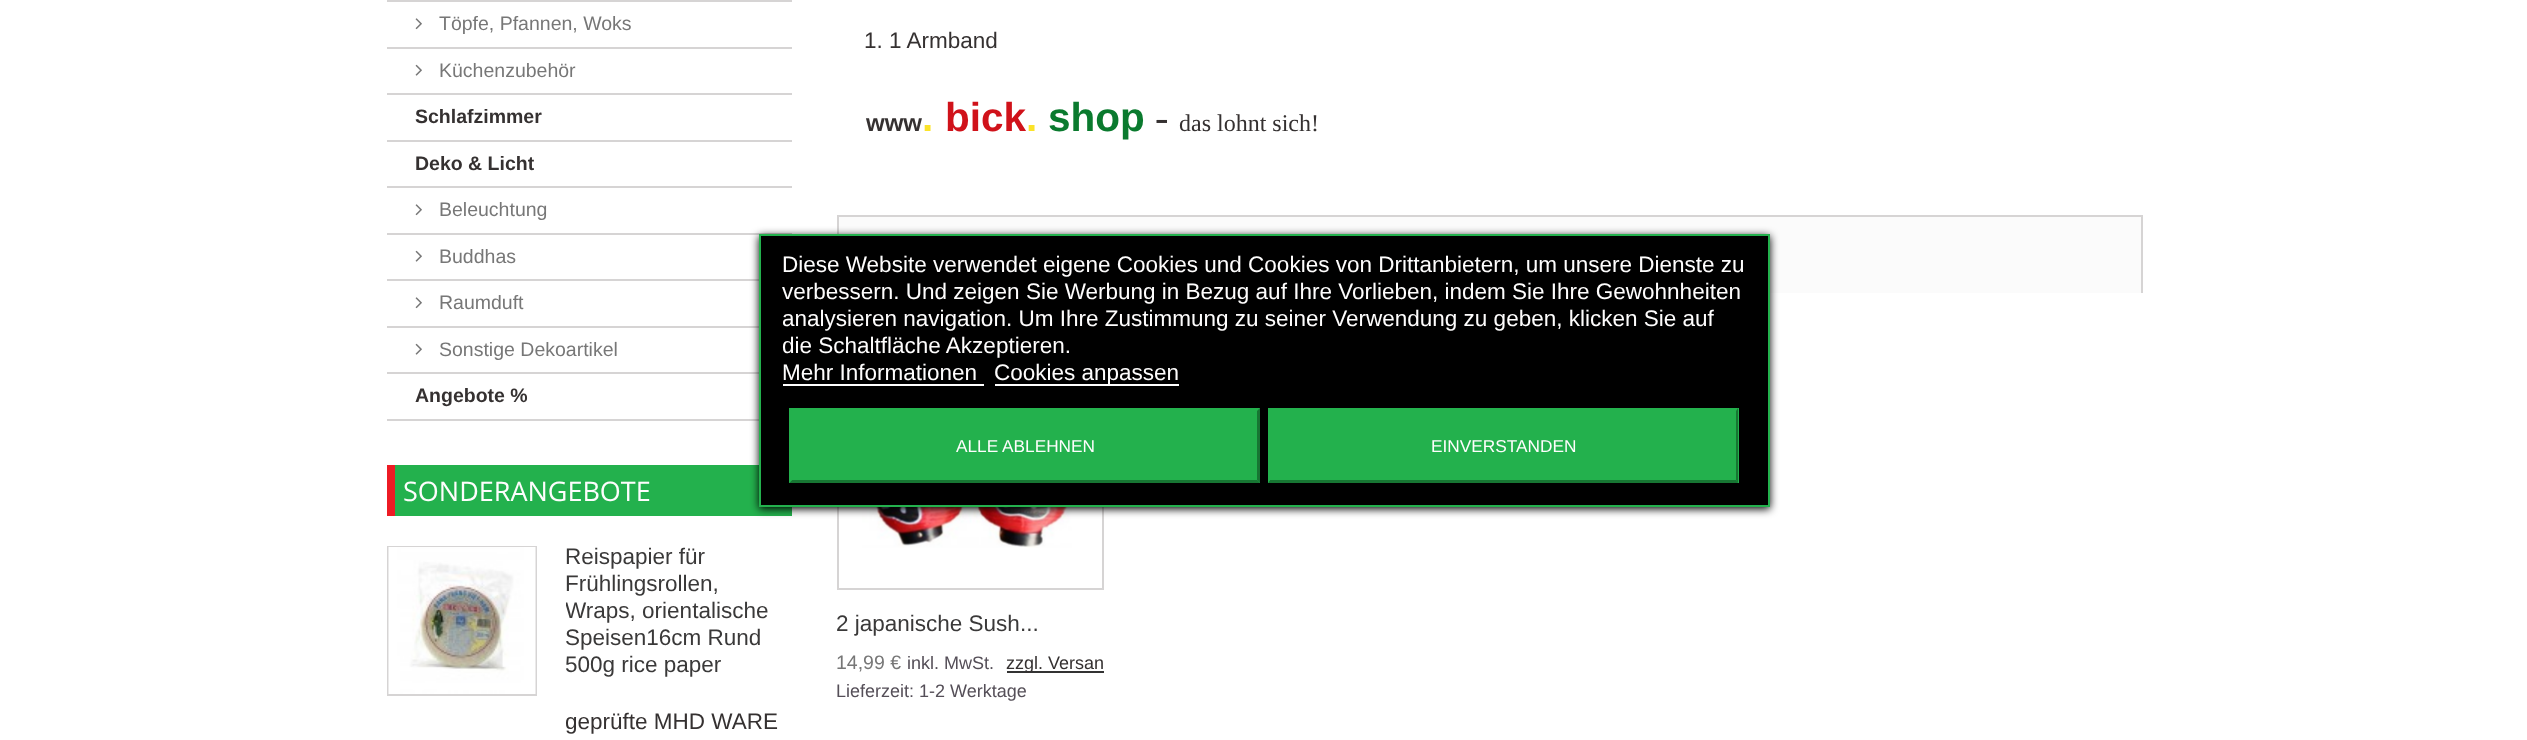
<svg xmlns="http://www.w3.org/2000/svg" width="2527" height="740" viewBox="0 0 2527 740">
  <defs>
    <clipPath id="clip1"><rect x="566" y="546" width="226" height="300"/></clipPath>
    <filter id="blur1" x="-50%" y="-200%" width="200%" height="500%"><feGaussianBlur stdDeviation="4"/></filter>
  </defs>
  <rect width="100%" height="100%" fill="#ffffff"/>
  <rect x="387" y="0" width="405" height="2" fill="#d6d4d4"/>
  <rect x="387" y="47" width="405" height="2" fill="#d6d4d4"/>
  <image x="415" y="18" width="7" height="12" href="img1.png"/>
  <text x="439" y="30" font-family="Liberation Sans" font-size="19.5" fill="#777777">Töpfe, Pfannen, Woks</text>
  <rect x="387" y="93" width="405" height="2" fill="#d6d4d4"/>
  <image x="415" y="64" width="7" height="12" href="img2.png"/>
  <text x="439" y="77" font-family="Liberation Sans" font-size="19.5" fill="#777777">Küchenzubehör</text>
  <rect x="387" y="140" width="405" height="2" fill="#d6d4d4"/>
  <text x="415" y="123" font-family="Liberation Sans" font-size="19.5" font-weight="bold" fill="#353131">Schlafzimmer</text>
  <rect x="387" y="186" width="405" height="2" fill="#d6d4d4"/>
  <text x="415" y="170" font-family="Liberation Sans" font-size="19.5" font-weight="bold" fill="#353131">Deko &amp; Licht</text>
  <rect x="387" y="233" width="405" height="2" fill="#d6d4d4"/>
  <image x="415" y="204" width="7" height="12" href="img1.png"/>
  <text x="439" y="216" font-family="Liberation Sans" font-size="19.5" fill="#777777">Beleuchtung</text>
  <rect x="387" y="279" width="372" height="2" fill="#d6d4d4"/>
  <image x="415" y="250" width="7" height="12" href="img2.png"/>
  <text x="439" y="263" font-family="Liberation Sans" font-size="19.5" fill="#777777">Buddhas</text>
  <rect x="387" y="326" width="372" height="2" fill="#d6d4d4"/>
  <image x="415" y="297" width="7" height="12" href="img1.png"/>
  <text x="439" y="309" font-family="Liberation Sans" font-size="19.5" fill="#777777">Raumduft</text>
  <rect x="387" y="372" width="372" height="2" fill="#d6d4d4"/>
  <image x="415" y="343" width="7" height="12" href="img2.png"/>
  <text x="439" y="356" font-family="Liberation Sans" font-size="19.5" fill="#777777">Sonstige Dekoartikel</text>
  <rect x="387" y="419" width="372" height="2" fill="#d6d4d4"/>
  <text x="415" y="402" font-family="Liberation Sans" font-size="19.5" font-weight="bold" fill="#353131">Angebote %</text>
  <rect x="395" y="465" width="397" height="51" fill="#23b14d"/>
  <rect x="387" y="465" width="8" height="51" fill="#ed1b24"/>
  <text x="403" y="501" font-family="Open Sans" font-size="27" fill="#fefdfd">SONDERANGEBOTE</text>
  <rect x="388" y="547" width="148" height="148" fill="none" stroke="#d6d4d4" stroke-width="2"/>
  <image x="388" y="547" width="148" height="147" href="img3.png"/>
  <text x="565" y="564" font-family="Liberation Sans" font-size="22.5" fill="#3a3939">Reispapier für</text>
  <text x="565" y="591" font-family="Liberation Sans" font-size="22.5" fill="#3a3939">Frühlingsrollen,</text>
  <g clip-path="url(#clip1)">
    <text x="565" y="618" font-family="Liberation Sans" font-size="22.5" fill="#3a3939">Wraps, orientalische</text>
  </g>
  <text x="565" y="645" font-family="Liberation Sans" font-size="22.5" fill="#3a3939">Speisen16cm Rund</text>
  <text x="565" y="672" font-family="Liberation Sans" font-size="22.5" fill="#3a3939">500g rice paper</text>
  <g clip-path="url(#clip1)">
    <text x="565" y="729" font-family="Liberation Sans" font-size="22.5" fill="#353131">geprüfte MHD WARE</text>
  </g>
  <text x="864" y="48" font-family="Liberation Sans" font-size="22.5" fill="#353131">1. 1 Armband</text>
  <text x="866" y="131" font-family="Liberation Sans" font-size="24" font-weight="bold" fill="#353131">www</text>
  <text x="945" y="131" font-family="Liberation Sans" font-size="40.5" font-weight="bold" fill="#d0121a">bick</text>
  <text x="1048" y="131" font-family="Liberation Sans" font-size="40.5" font-weight="bold" fill="#0a7a2e">shop</text>
  <text x="1155" y="131" font-family="Liberation Serif" font-size="40.5" fill="#353131">-</text>
  <text x="1179" y="131" font-family="Liberation Serif" font-size="24" fill="#353131">das lohnt sich!</text>
  <text x="922" y="131" font-family="Liberation Sans" font-size="40.5" font-weight="bold" fill="#fbe329">.</text>
  <text x="1026" y="131" font-family="Liberation Sans" font-size="40.5" font-weight="bold" fill="#fbe329">.</text>
  <rect x="839" y="217" width="1302" height="76" fill="#fbfbfb"/>
  <rect x="837" y="215" width="1305" height="2" fill="#d6d4d4"/>
  <rect x="2141" y="215" width="2" height="78" fill="#d6d4d4"/>
  <rect x="837" y="215" width="2" height="19" fill="#d6d4d4"/>
  <rect x="838" y="324" width="265" height="265" fill="none" stroke="#d6d4d4" stroke-width="2"/>
  <image x="862" y="507" width="210" height="41" href="img4.png"/>
  <text x="836" y="631" font-family="Liberation Sans" font-size="22.5" fill="#3a3939">2 japanische Sush...</text>
  <text x="836" y="669" font-family="Liberation Sans" font-size="19.5" fill="#777777">14,99 €</text>
  <text x="907" y="669" font-family="Liberation Sans" font-size="18" fill="#554f58">inkl. MwSt.</text>
  <rect x="1007" y="671" width="97" height="2" fill="#333333"/>
  <text x="1006" y="669" font-family="Liberation Sans" font-size="18" fill="#353131">zzgl. Versan</text>
  <text x="836" y="697" font-family="Liberation Sans" font-size="18" fill="#554f58">Lieferzeit: 1-2 Werktage</text>
  <rect x="759" y="236" width="1011" height="273" fill="#000000" filter="url(#blur1)"/>
  <rect x="760" y="235" width="1009" height="271" fill="#000000" stroke="#23b14d" stroke-width="2"/>
  <text x="782" y="272" font-family="Liberation Sans" font-size="22.5" fill="#fefdfd">Diese Website verwendet eigene Cookies und Cookies von Drittanbietern, um unsere Dienste zu</text>
  <text x="782" y="299" font-family="Liberation Sans" font-size="22.5" fill="#fefdfd">verbessern. Und zeigen Sie Werbung in Bezug auf Ihre Vorlieben, indem Sie Ihre Gewohnheiten</text>
  <text x="782" y="326" font-family="Liberation Sans" font-size="22.5" fill="#fefdfd">analysieren navigation. Um Ihre Zustimmung zu seiner Verwendung zu geben, klicken Sie auf</text>
  <text x="782" y="353" font-family="Liberation Sans" font-size="22.5" fill="#fefdfd">die Schaltfläche Akzeptieren.</text>
  <text x="782" y="380" font-family="Liberation Sans" font-size="22.5" fill="#fefdfd">Mehr Informationen</text>
  <rect x="783" y="384" width="201" height="2" fill="#ffffff"/>
  <rect x="995" y="384" width="184" height="2" fill="#ffffff"/>
  <text x="994" y="380" font-family="Liberation Sans" font-size="22.5" fill="#fefdfd">Cookies anpassen</text>
  <rect x="789" y="408" width="471" height="75" fill="#23b14d"/>
  <path d="M1260 408V483L1257 480V411Z" fill="#177633"/>
  <path d="M1260 483H789L792 480H1257Z" fill="#177633"/>
  <path d="M789 483V408L792 411V480Z" fill="#23b14d"/>
  <text x="956" y="452" font-family="Liberation Sans" font-size="17.25" fill="#fefdfd">ALLE ABLEHNEN</text>
  <rect x="1268" y="408" width="471" height="75" fill="#23b14d"/>
  <path d="M1738 408V483L1736 480V411Z" fill="#177633"/>
  <path d="M1738 483H1268L1270 480H1736Z" fill="#177633"/>
  <path d="M1268 483V408L1270 411V480Z" fill="#23b14d"/>
  <text x="1431" y="452" font-family="Liberation Sans" font-size="17.25" fill="#fefdfd">EINVERSTANDEN</text>
</svg>
